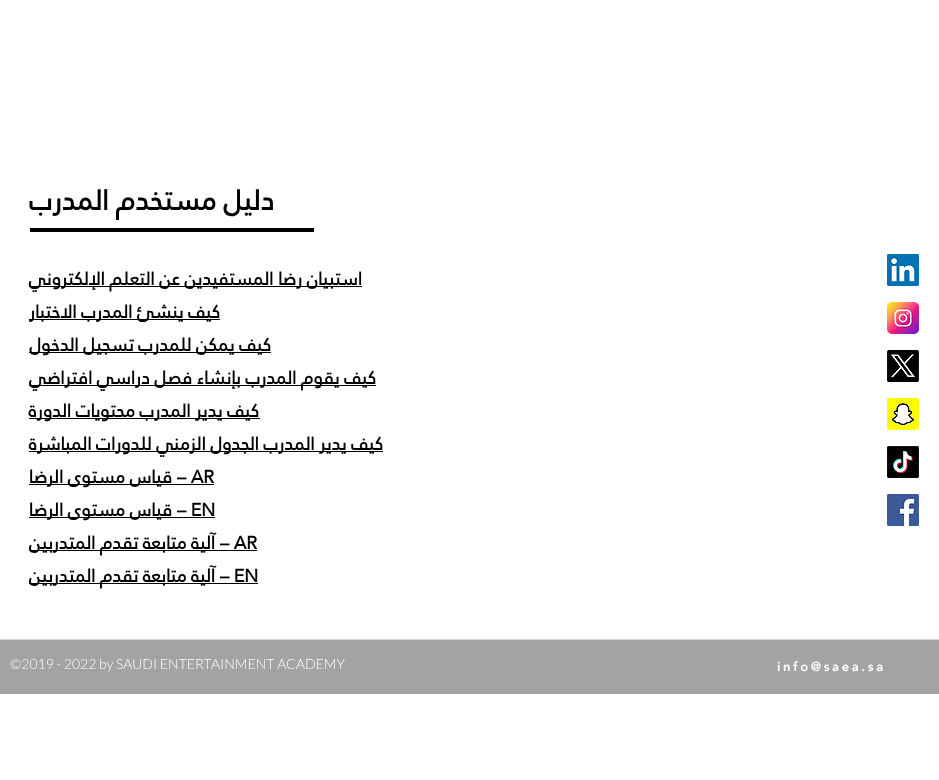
<svg xmlns="http://www.w3.org/2000/svg" width="939" height="780" viewBox="0 0 939 780">
  <rect width="100%" height="100%" fill="#ffffff"/>
  <image x="887" y="254" width="32" height="32" href="img1.png"/>
  <image x="887" y="302" width="32" height="32" href="img2.png"/>
  <image x="887" y="350" width="32" height="32" href="img3.png"/>
  <image x="887" y="398" width="32" height="32" href="img4.png"/>
  <image x="887" y="446" width="32" height="32" href="img5.png"/>
  <image x="887" y="494" width="32" height="32" href="img6.png"/>
  <text x="274" y="210" font-family="'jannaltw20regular'" font-size="28" font-weight="bold" direction="rtl" fill="#000000">دليل مستخدم المدرب</text>
  <rect x="30" y="228" width="284" height="4" fill="#000000"/>
  <rect x="29" y="286" width="333" height="1" fill="#000000"/>
  <text x="362" y="285" font-family="'jannaltw20regular'" font-size="18" font-weight="bold" direction="rtl" fill="#000000">استبيان رضا المستفيدين عن التعلم الإلكتروني</text>
  <rect x="29" y="319" width="191" height="1" fill="#000000"/>
  <text x="220" y="318" font-family="'jannaltw20regular'" font-size="18" font-weight="bold" direction="rtl" fill="#000000">كيف ينشئ المدرب الاختبار</text>
  <rect x="29" y="352" width="242" height="1" fill="#000000"/>
  <text x="271" y="351" font-family="'jannaltw20regular'" font-size="18" font-weight="bold" direction="rtl" fill="#000000">كيف يمكن للمدرب تسجيل الدخول</text>
  <rect x="29" y="385" width="347" height="1" fill="#000000"/>
  <text x="376" y="384" font-family="'jannaltw20regular'" font-size="18" font-weight="bold" direction="rtl" fill="#000000">كيف يقوم المدرب بإنشاء فصل دراسي افتراضي</text>
  <rect x="29" y="418" width="231" height="1" fill="#000000"/>
  <text x="259" y="417" font-family="'jannaltw20regular'" font-size="18" font-weight="bold" direction="rtl" fill="#000000">كيف يدير المدرب محتويات الدورة</text>
  <rect x="29" y="451" width="354" height="1" fill="#000000"/>
  <text x="383" y="450" font-family="'jannaltw20regular'" font-size="18" font-weight="bold" direction="rtl" fill="#000000">كيف يدير المدرب الجدول الزمني للدورات المباشرة</text>
  <text x="177" y="483" font-family="'jannaltw20regular'" font-size="18" font-weight="bold" fill="#000000">– AR</text>
  <rect x="29" y="484" width="185" height="1" fill="#000000"/>
  <text x="172" y="483" font-family="'jannaltw20regular'" font-size="18" font-weight="bold" direction="rtl" fill="#000000">قياس مستوى الرضا</text>
  <text x="177" y="516" font-family="'jannaltw20regular'" font-size="18" font-weight="bold" fill="#000000">– EN</text>
  <rect x="29" y="517" width="186" height="1" fill="#000000"/>
  <text x="172" y="516" font-family="'jannaltw20regular'" font-size="18" font-weight="bold" direction="rtl" fill="#000000">قياس مستوى الرضا</text>
  <text x="220" y="549" font-family="'jannaltw20regular'" font-size="18" font-weight="bold" fill="#000000">– AR</text>
  <rect x="29" y="550" width="186" height="1" fill="#000000"/>
  <text x="215" y="549" font-family="'jannaltw20regular'" font-size="18" font-weight="bold" direction="rtl" fill="#000000">آلية متابعة تقدم المتدربين</text>
  <rect x="215" y="550" width="42" height="1" fill="#000000"/>
  <text x="220" y="582" font-family="'jannaltw20regular'" font-size="18" font-weight="bold" fill="#000000">– EN</text>
  <rect x="29" y="583" width="186" height="1" fill="#000000"/>
  <text x="215" y="582" font-family="'jannaltw20regular'" font-size="18" font-weight="bold" direction="rtl" fill="#000000">آلية متابعة تقدم المتدربين</text>
  <rect x="215" y="583" width="43" height="1" fill="#000000"/>
  <rect x="0" y="639" width="939" height="1" fill="#d9d9d9"/>
  <rect x="0" y="640" width="939" height="54" fill="#a3a3a3"/>
  <text x="777" y="671" font-family="'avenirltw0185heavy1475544'" font-size="13" font-weight="900" letter-spacing="2.6" fill="#ffffff">info@saea.sa</text>
  <text x="10" y="669" font-family="Lato" font-size="14" font-weight="300" fill="#ffffff">©2019 - 2022 by SAUDI ENTERTAINMENT ACADEMY</text>
</svg>
